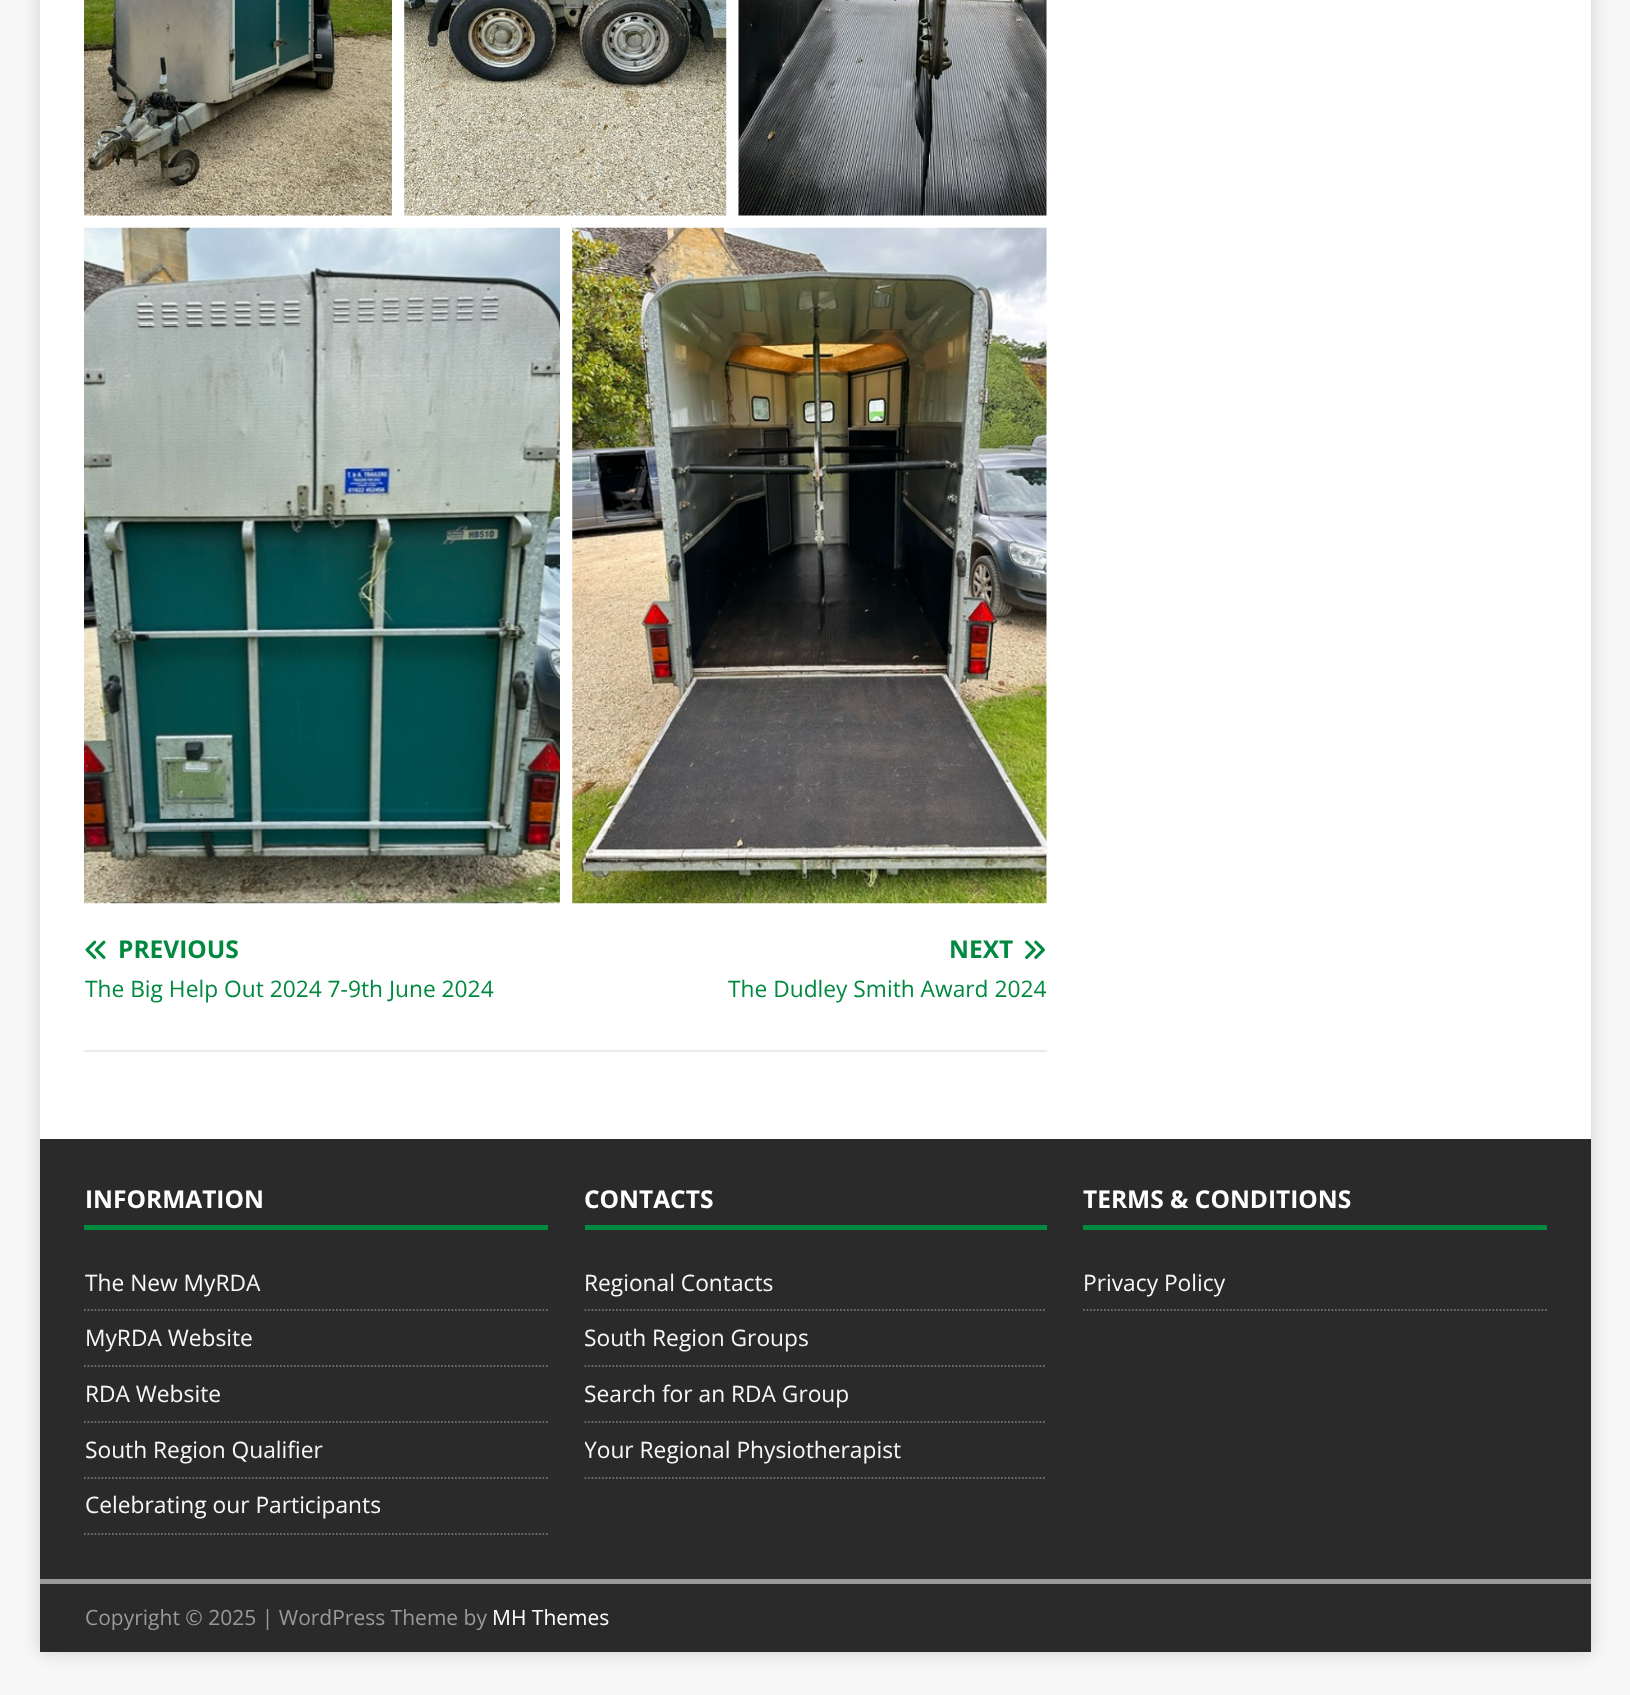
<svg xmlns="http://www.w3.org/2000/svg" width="1630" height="1695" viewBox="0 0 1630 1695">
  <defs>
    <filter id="blur1" x="-50%" y="-200%" width="200%" height="500%"><feGaussianBlur stdDeviation="9"/></filter>
    <clipPath id="clip1"><rect x="585" y="1183" width="462" height="296"/></clipPath>
  </defs>
  <rect width="100%" height="100%" fill="#f7f7f7"/>
  <rect x="40" y="-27" width="1551" height="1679" fill="#323232" fill-opacity="0.17" filter="url(#blur1)"/>
  <rect x="40" y="0" width="1551" height="1139" fill="#ffffff"/>
  <image x="84" y="0" width="308" height="216" href="img1.png"/>
  <image x="404" y="0" width="323" height="216" href="img2.png"/>
  <image x="738" y="0" width="309" height="216" href="img3.png"/>
  <image x="84" y="227" width="476" height="677" href="img4.png"/>
  <image x="572" y="227" width="475" height="677" href="img5.png"/>
  <rect x="84" y="1050" width="963" height="2" fill="#ebebeb"/>
  <image x="85" y="940" width="21" height="19" href="img6.png"/>
  <text x="118" y="958" font-family="Open Sans" font-size="24.5" font-weight="bold" fill="#018940">PREVIOUS</text>
  <text x="85" y="997" font-family="Open Sans" font-size="22.75" fill="#018940">The Big Help Out 2024 7-9th June 2024</text>
  <text x="949" y="958" font-family="Open Sans" font-size="24.5" font-weight="bold" fill="#018940">NEXT</text>
  <image x="1025" y="940" width="20" height="19" href="img7.png"/>
  <text x="728" y="997" font-family="Open Sans" font-size="22.75" fill="#018940">The Dudley Smith Award 2024</text>
  <rect x="40" y="1139" width="1551" height="440" fill="#2a2a2a"/>
  <rect x="84" y="1225" width="464" height="5" fill="#018940"/>
  <text x="85" y="1208" font-family="Open Sans" font-size="24.5" font-weight="bold" fill="#ffffff">INFORMATION</text>
  <path d="M84 1310H548" fill="none" stroke="#6a6a6a" stroke-width="1.8" stroke-dasharray="1.75 1.75"/>
  <text x="85" y="1291" font-family="Open Sans" font-size="22.75" fill="#f7f7f7">The New MyRDA</text>
  <path d="M84 1366H548" fill="none" stroke="#6a6a6a" stroke-width="1.8" stroke-dasharray="1.75 1.75"/>
  <text x="85" y="1346" font-family="Open Sans" font-size="22.75" fill="#f7f7f7">MyRDA Website</text>
  <path d="M84 1422H548" fill="none" stroke="#6a6a6a" stroke-width="1.8" stroke-dasharray="1.75 1.75"/>
  <text x="85" y="1402" font-family="Open Sans" font-size="22.75" fill="#f7f7f7">RDA Website</text>
  <path d="M84 1478H548" fill="none" stroke="#6a6a6a" stroke-width="1.8" stroke-dasharray="1.75 1.75"/>
  <text x="85" y="1458" font-family="Open Sans" font-size="22.75" fill="#f7f7f7">South Region Qualifier</text>
  <path d="M84 1534H548" fill="none" stroke="#6a6a6a" stroke-width="1.8" stroke-dasharray="1.75 1.75"/>
  <text x="85" y="1513" font-family="Open Sans" font-size="22.75" fill="#f7f7f7">Celebrating our Participants</text>
  <rect x="585" y="1225" width="462" height="5" fill="#018940"/>
  <text x="584" y="1208" font-family="Open Sans" font-size="24.5" font-weight="bold" fill="#ffffff">CONTACTS</text>
  <path d="M584.5 1310H1046.5" fill="none" stroke="#6a6a6a" stroke-width="1.8" stroke-dasharray="1.75 1.75"/>
  <text x="584" y="1291" font-family="Open Sans" font-size="22.75" fill="#f7f7f7">Regional Contacts</text>
  <path d="M584.5 1366H1046.5" fill="none" stroke="#6a6a6a" stroke-width="1.8" stroke-dasharray="1.75 1.75"/>
  <text x="584" y="1346" font-family="Open Sans" font-size="22.75" fill="#f7f7f7">South Region Groups</text>
  <path d="M584.5 1422H1046.5" fill="none" stroke="#6a6a6a" stroke-width="1.8" stroke-dasharray="1.75 1.75"/>
  <text x="584" y="1402" font-family="Open Sans" font-size="22.75" fill="#f7f7f7">Search for an RDA Group</text>
  <path d="M584.5 1478H1046.5" fill="none" stroke="#6a6a6a" stroke-width="1.8" stroke-dasharray="1.75 1.75"/>
  <g clip-path="url(#clip1)">
    <text x="584" y="1458" font-family="Open Sans" font-size="22.75" fill="#f7f7f7">Your Regional Physiotherapist</text>
  </g>
  <rect x="1083" y="1225" width="464" height="5" fill="#018940"/>
  <text x="1083" y="1208" font-family="Open Sans" font-size="24.5" font-weight="bold" fill="#ffffff">TERMS &amp; CONDITIONS</text>
  <path d="M1083 1310H1547" fill="none" stroke="#6a6a6a" stroke-width="1.8" stroke-dasharray="1.75 1.75"/>
  <text x="1083" y="1291" font-family="Open Sans" font-size="22.75" fill="#f7f7f7">Privacy Policy</text>
  <rect x="40" y="1584" width="1551" height="68" fill="#2a2a2a"/>
  <rect x="40" y="1579" width="1551" height="5" fill="#999999"/>
  <text x="85" y="1625" font-family="Open Sans" font-size="21" fill="#999999">Copyright © 2025 | WordPress Theme by</text>
  <text x="492" y="1625" font-family="Open Sans" font-size="21" fill="#ffffff">MH Themes</text>
</svg>
